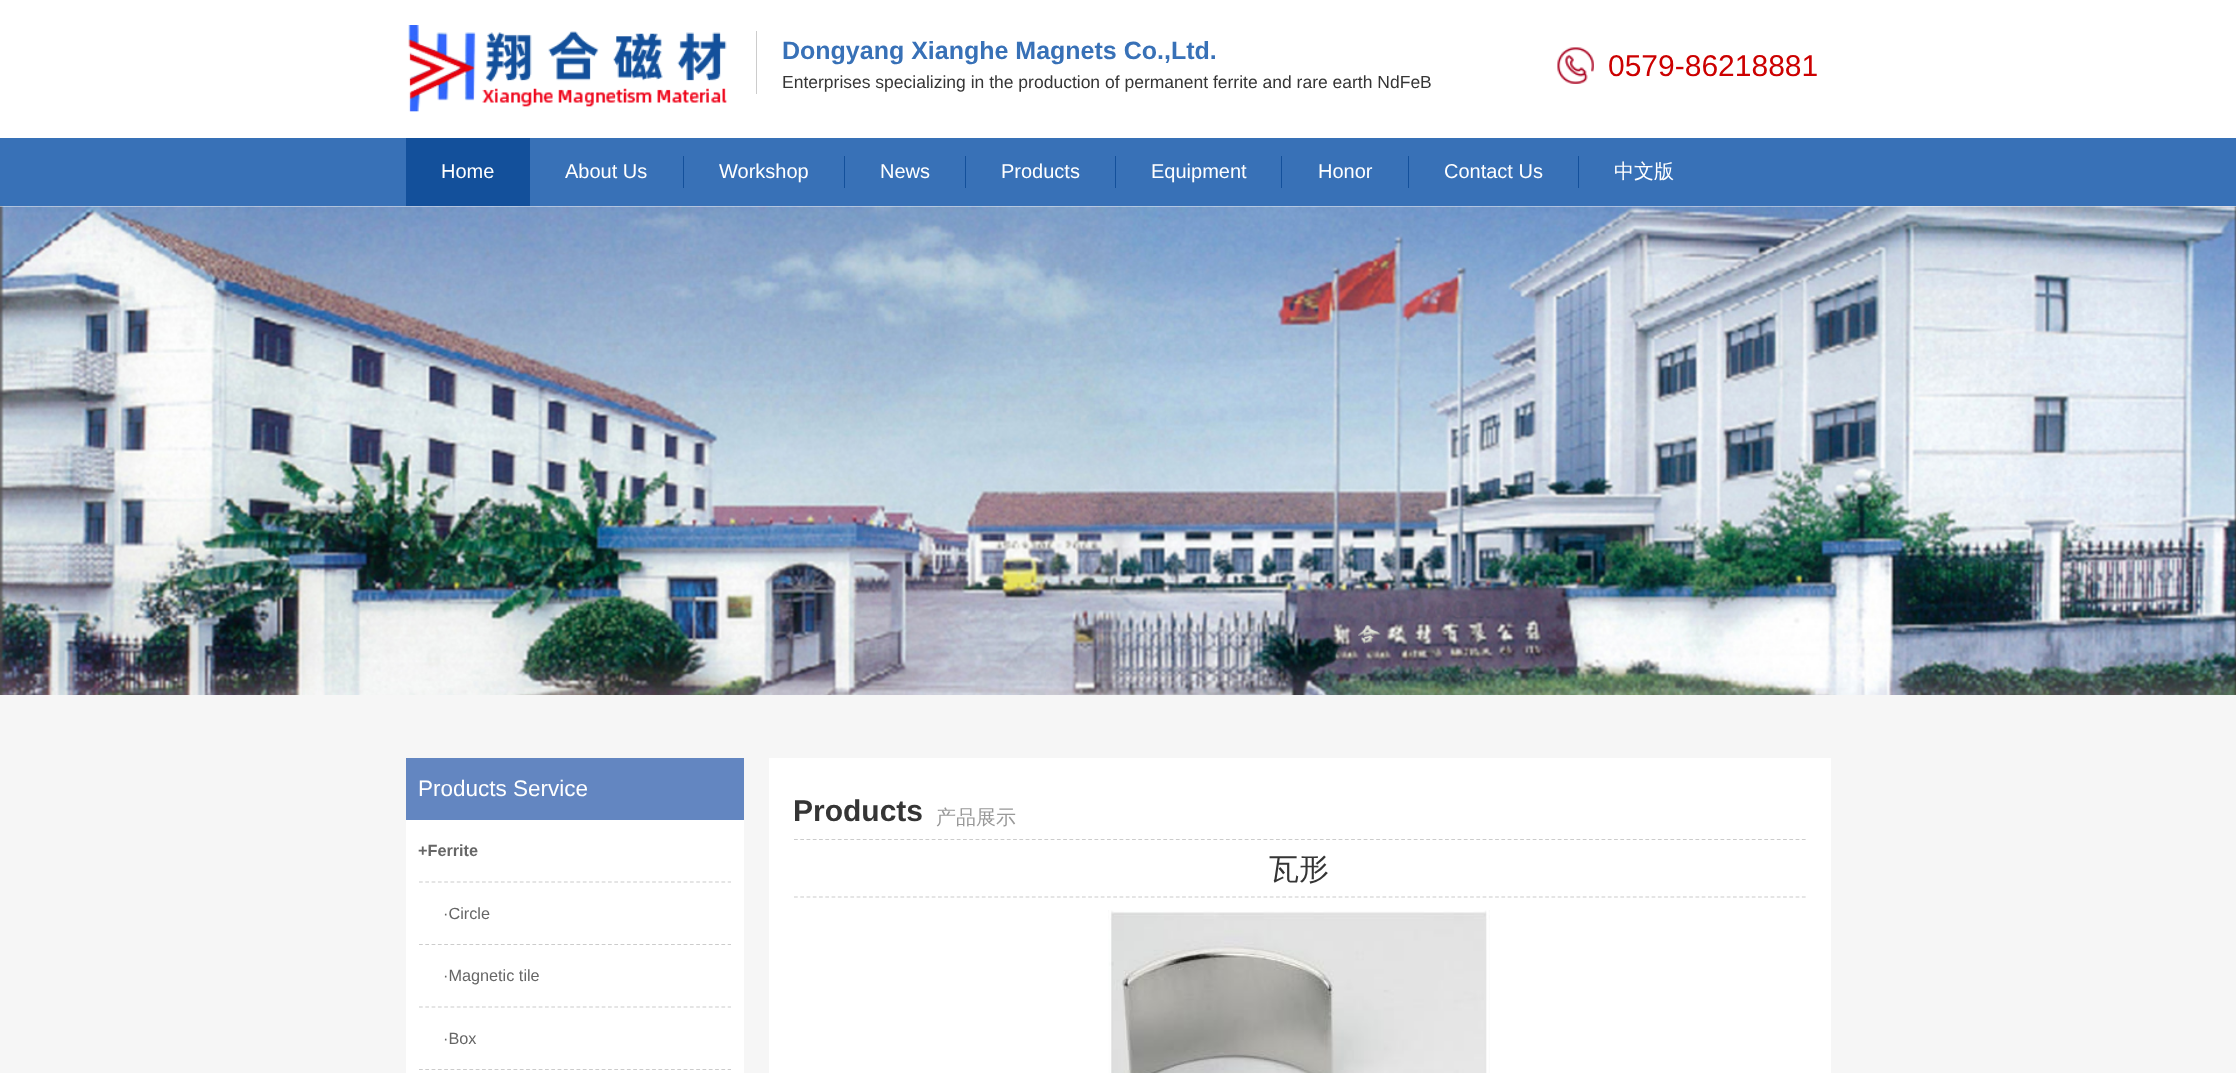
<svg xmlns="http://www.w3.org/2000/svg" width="2236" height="1073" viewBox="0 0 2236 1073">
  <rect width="100%" height="100%" fill="#ffffff"/>
  <image x="408" y="25" width="319" height="87" href="img1.png"/>
  <rect x="756" y="31" width="1" height="63" fill="#cccccc"/>
  <text x="782" y="59" font-family="Liberation Sans" font-size="25" font-weight="bold" fill="#3871b7">Dongyang Xianghe Magnets Co.,Ltd.</text>
  <text x="782" y="88" font-family="Liberation Sans" font-size="17.5" fill="#353535">Enterprises specializing in the production of permanent ferrite and rare earth NdFeB</text>
  <image x="1557" y="47" width="37" height="37" href="img2.png"/>
  <text x="1608" y="76" font-family="Liberation Sans" font-size="30" fill="#cc0000">0579-86218881</text>
  <rect x="0" y="138" width="2236" height="68" fill="#3871b7"/>
  <rect x="406" y="138" width="124" height="68" fill="#13509b"/>
  <text x="441" y="178" font-family="Liberation Sans" font-size="20" fill="#ffffff">Home</text>
  <rect x="683" y="156" width="1" height="32" fill="#13509b"/>
  <text x="565" y="178" font-family="Liberation Sans" font-size="20" fill="#ffffff">About Us</text>
  <rect x="844" y="156" width="1" height="32" fill="#13509b"/>
  <text x="719" y="178" font-family="Liberation Sans" font-size="20" fill="#ffffff">Workshop</text>
  <rect x="965" y="156" width="1" height="32" fill="#13509b"/>
  <text x="880" y="178" font-family="Liberation Sans" font-size="20" fill="#ffffff">News</text>
  <rect x="1115" y="156" width="1" height="32" fill="#13509b"/>
  <text x="1001" y="178" font-family="Liberation Sans" font-size="20" fill="#ffffff">Products</text>
  <rect x="1281" y="156" width="1" height="32" fill="#13509b"/>
  <text x="1151" y="178" font-family="Liberation Sans" font-size="20" fill="#ffffff">Equipment</text>
  <rect x="1408" y="156" width="1" height="32" fill="#13509b"/>
  <text x="1318" y="178" font-family="Liberation Sans" font-size="20" fill="#ffffff">Honor</text>
  <rect x="1578" y="156" width="1" height="32" fill="#13509b"/>
  <text x="1444" y="178" font-family="Liberation Sans" font-size="20" fill="#ffffff">Contact Us</text>
  <text x="1614" y="178" font-family="WenQuanYi Zen Hei" font-size="20" font-weight="500" fill="#ffffff">中文版</text>
  <image x="0" y="206" width="2236" height="489" href="img3.png"/>
  <rect x="0" y="695" width="2236" height="378" fill="#f6f6f6"/>
  <rect x="406" y="758" width="338" height="62" fill="#6386c1"/>
  <text x="418" y="796" font-family="Liberation Sans" font-size="22.5" fill="#ffffff">Products Service</text>
  <rect x="406" y="820" width="338" height="253" fill="#ffffff"/>
  <path d="M419 882H731" fill="none" stroke="#cccccc" stroke-width="1.2" stroke-dasharray="3.75 2.55"/>
  <text x="418" y="856" font-family="Liberation Sans" font-size="16.25" font-weight="bold" fill="#666666">+Ferrite</text>
  <path d="M419 944.5H731" fill="none" stroke="#cccccc" stroke-width="1.2" stroke-dasharray="3.75 2.55"/>
  <text x="443" y="919" font-family="Liberation Sans" font-size="16.25" fill="#666666">·Circle</text>
  <path d="M419 1007H731" fill="none" stroke="#cccccc" stroke-width="1.2" stroke-dasharray="3.75 2.55"/>
  <text x="443" y="981" font-family="Liberation Sans" font-size="16.25" fill="#666666">·Magnetic tile</text>
  <path d="M419 1069.5H731" fill="none" stroke="#cccccc" stroke-width="1.2" stroke-dasharray="3.75 2.55"/>
  <text x="443" y="1044" font-family="Liberation Sans" font-size="16.25" fill="#666666">·Box</text>
  <rect x="769" y="758" width="1062" height="315" fill="#ffffff"/>
  <path d="M794 839.5H1806" fill="none" stroke="#cccccc" stroke-width="1.2" stroke-dasharray="3.75 2.51"/>
  <text x="793" y="821" font-family="Liberation Sans" font-size="30" font-weight="bold" fill="#353535">Products</text>
  <text x="936" y="824" font-family="WenQuanYi Zen Hei" font-size="20" font-weight="500" fill="#999999">产品展示</text>
  <path d="M794 897H1806" fill="none" stroke="#cccccc" stroke-width="1.2" stroke-dasharray="3.75 2.51"/>
  <text x="1269" y="879" font-family="WenQuanYi Zen Hei" font-size="30" font-weight="500" fill="#353535">瓦形</text>
  <image x="1108" y="910" width="382" height="163" href="img4.png"/>
</svg>
